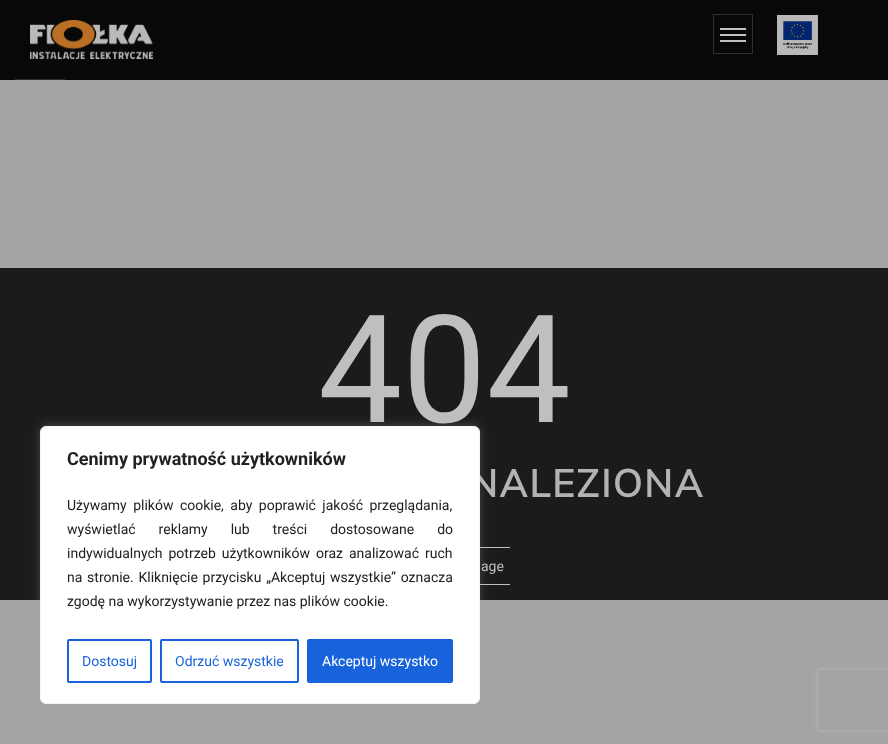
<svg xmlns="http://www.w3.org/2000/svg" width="888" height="744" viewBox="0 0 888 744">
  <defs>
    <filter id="blur1" x="-50%" y="-200%" width="200%" height="500%"><feGaussianBlur stdDeviation="5"/></filter>
    <clipPath id="clip1"><path d="M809 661H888V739H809ZM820 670H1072C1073 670 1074 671 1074 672V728C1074 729 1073 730 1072 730H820C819 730 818 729 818 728V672C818 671 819 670 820 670Z" clip-rule="evenodd"/></clipPath>
    <filter id="blur2" x="-50%" y="-200%" width="200%" height="500%"><feGaussianBlur stdDeviation="2.5"/></filter>
  </defs>
  <rect width="100%" height="100%" fill="#a4a4a4"/>
  <rect x="0" y="268" width="888" height="332" fill="#1b1b1b"/>
  <rect x="480" y="547" width="30" height="1" fill="#bfbfbf"/>
  <rect x="480" y="584" width="30" height="1" fill="#bfbfbf"/>
  <rect x="40" y="425" width="440" height="278" rx="6" fill="#acabab" fill-opacity="0.3" filter="url(#blur1)"/>
  <text x="469" y="497" font-family="Muli" font-size="38" font-weight="bold" letter-spacing="2" fill="#b3b3b3">NALEZIONA</text>
  <rect x="40.5" y="426.5" width="439" height="277" rx="5.5" fill="#ffffff" stroke="#f4f4f4"/>
  <text x="67" y="465" font-family="Roboto" font-size="18" font-weight="bold" fill="#212121">Cenimy prywatność użytkowników</text>
  <text x="67" y="510" word-spacing="3" font-family="Roboto" font-size="14" fill="#212121">Używamy plików cookie, aby poprawić jakość przeglądania,</text>
  <text x="67" y="534" word-spacing="19.5" font-family="Roboto" font-size="14" fill="#212121">wyświetlać reklamy lub treści dostosowane do</text>
  <text x="67" y="558" word-spacing="2.5" font-family="Roboto" font-size="14" fill="#212121">indywidualnych potrzeb użytkowników oraz analizować ruch</text>
  <text x="67" y="582" word-spacing="1.25" font-family="Roboto" font-size="14" fill="#212121">na stronie. Kliknięcie przycisku „Akceptuj wszystkie” oznacza</text>
  <text x="67" y="606" font-family="Roboto" font-size="14" fill="#212121">zgodę na wykorzystywanie przez nas plików cookie.</text>
  <rect x="68" y="640" width="83" height="42" rx="1" fill="none" stroke="#1863dc" stroke-width="2"/>
  <text x="82" y="666" font-family="Roboto" font-size="14" fill="#1863dc">Dostosuj</text>
  <rect x="161" y="640" width="137" height="42" rx="1" fill="none" stroke="#1863dc" stroke-width="2"/>
  <text x="175" y="666" font-family="Roboto" font-size="14" fill="#1863dc">Odrzuć wszystkie</text>
  <rect x="308" y="640" width="144" height="42" rx="1" fill="#1863dc" stroke="#1863dc" stroke-width="2"/>
  <text x="322" y="666" font-family="Roboto" font-size="14" fill="#ffffff">Akceptuj wszystko</text>
  <rect x="0" y="0" width="888" height="80" fill="#080808"/>
  <image x="30" y="20" width="123" height="39" href="img1.png"/>
  <rect x="713.5" y="14.5" width="39" height="39" fill="none" stroke="#2e2e2e"/>
  <rect x="720" y="28" width="26" height="2" fill="#bfbfbf"/>
  <rect x="720" y="34" width="26" height="2" fill="#bfbfbf"/>
  <rect x="720" y="40" width="26" height="2" fill="#bfbfbf"/>
  <image x="777" y="15" width="41" height="40" href="img2.png"/>
  <rect x="15" y="79" width="50" height="1" fill="#2e2e2e"/>
  <text x="318" y="422" font-family="Roboto" font-size="150" fill="#bfbfbf">404</text>
  <text x="481" y="571" font-family="Roboto" font-size="14" fill="#bfbfbf">age</text>
  <g clip-path="url(#clip1)">
    <rect x="818" y="670" width="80" height="60" rx="2" fill="#bcbcbc" filter="url(#blur2)"/>
  </g>
</svg>
